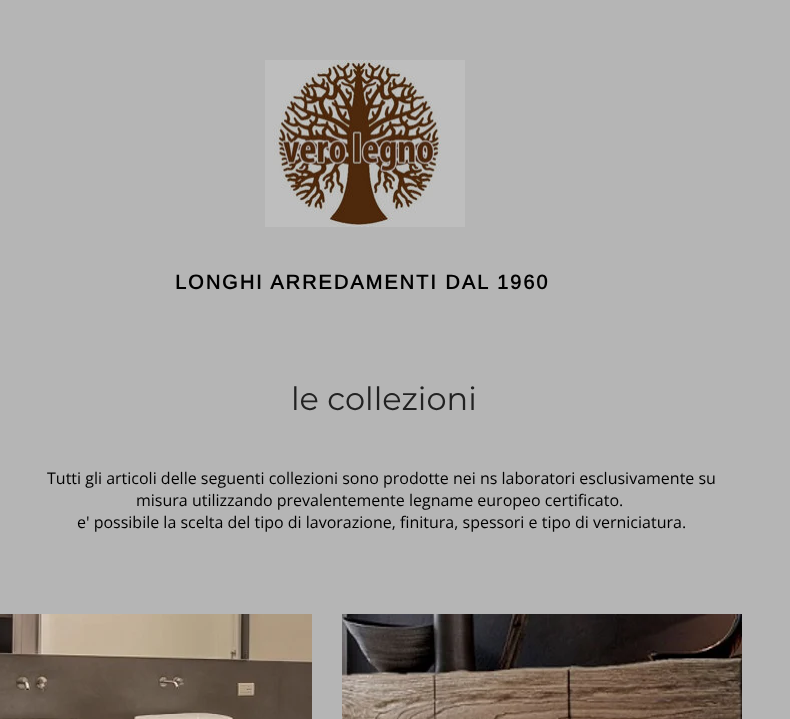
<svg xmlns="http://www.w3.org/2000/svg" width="790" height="719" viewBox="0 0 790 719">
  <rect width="100%" height="100%" fill="#b5b5b5"/>
  <image x="265" y="60" width="200" height="167" href="img1.png"/>
  <text x="175" y="289" font-family="Arimo" font-size="20" font-weight="bold" letter-spacing="2" fill="#000000">LONGHI ARREDAMENTI DAL 1960</text>
  <text x="291" y="410" font-family="Montserrat" font-size="32" fill="#222222">le collezioni</text>
  <text x="47" y="484" font-family="Open Sans" font-size="16" fill="#000000">Tutti gli articoli delle seguenti collezioni sono prodotte nei ns laboratori esclusivamente su</text>
  <text x="136" y="506" font-family="Open Sans" font-size="16" fill="#000000">misura utilizzando prevalentemente legname europeo certificato.</text>
  <text x="77" y="528" font-family="Open Sans" font-size="16" fill="#000000">e' possibile la scelta del tipo di lavorazione, finitura, spessori e tipo di verniciatura.</text>
  <image x="0" y="614" width="312" height="105" href="img2.png"/>
  <image x="342" y="614" width="400" height="105" href="img3.png"/>
</svg>
